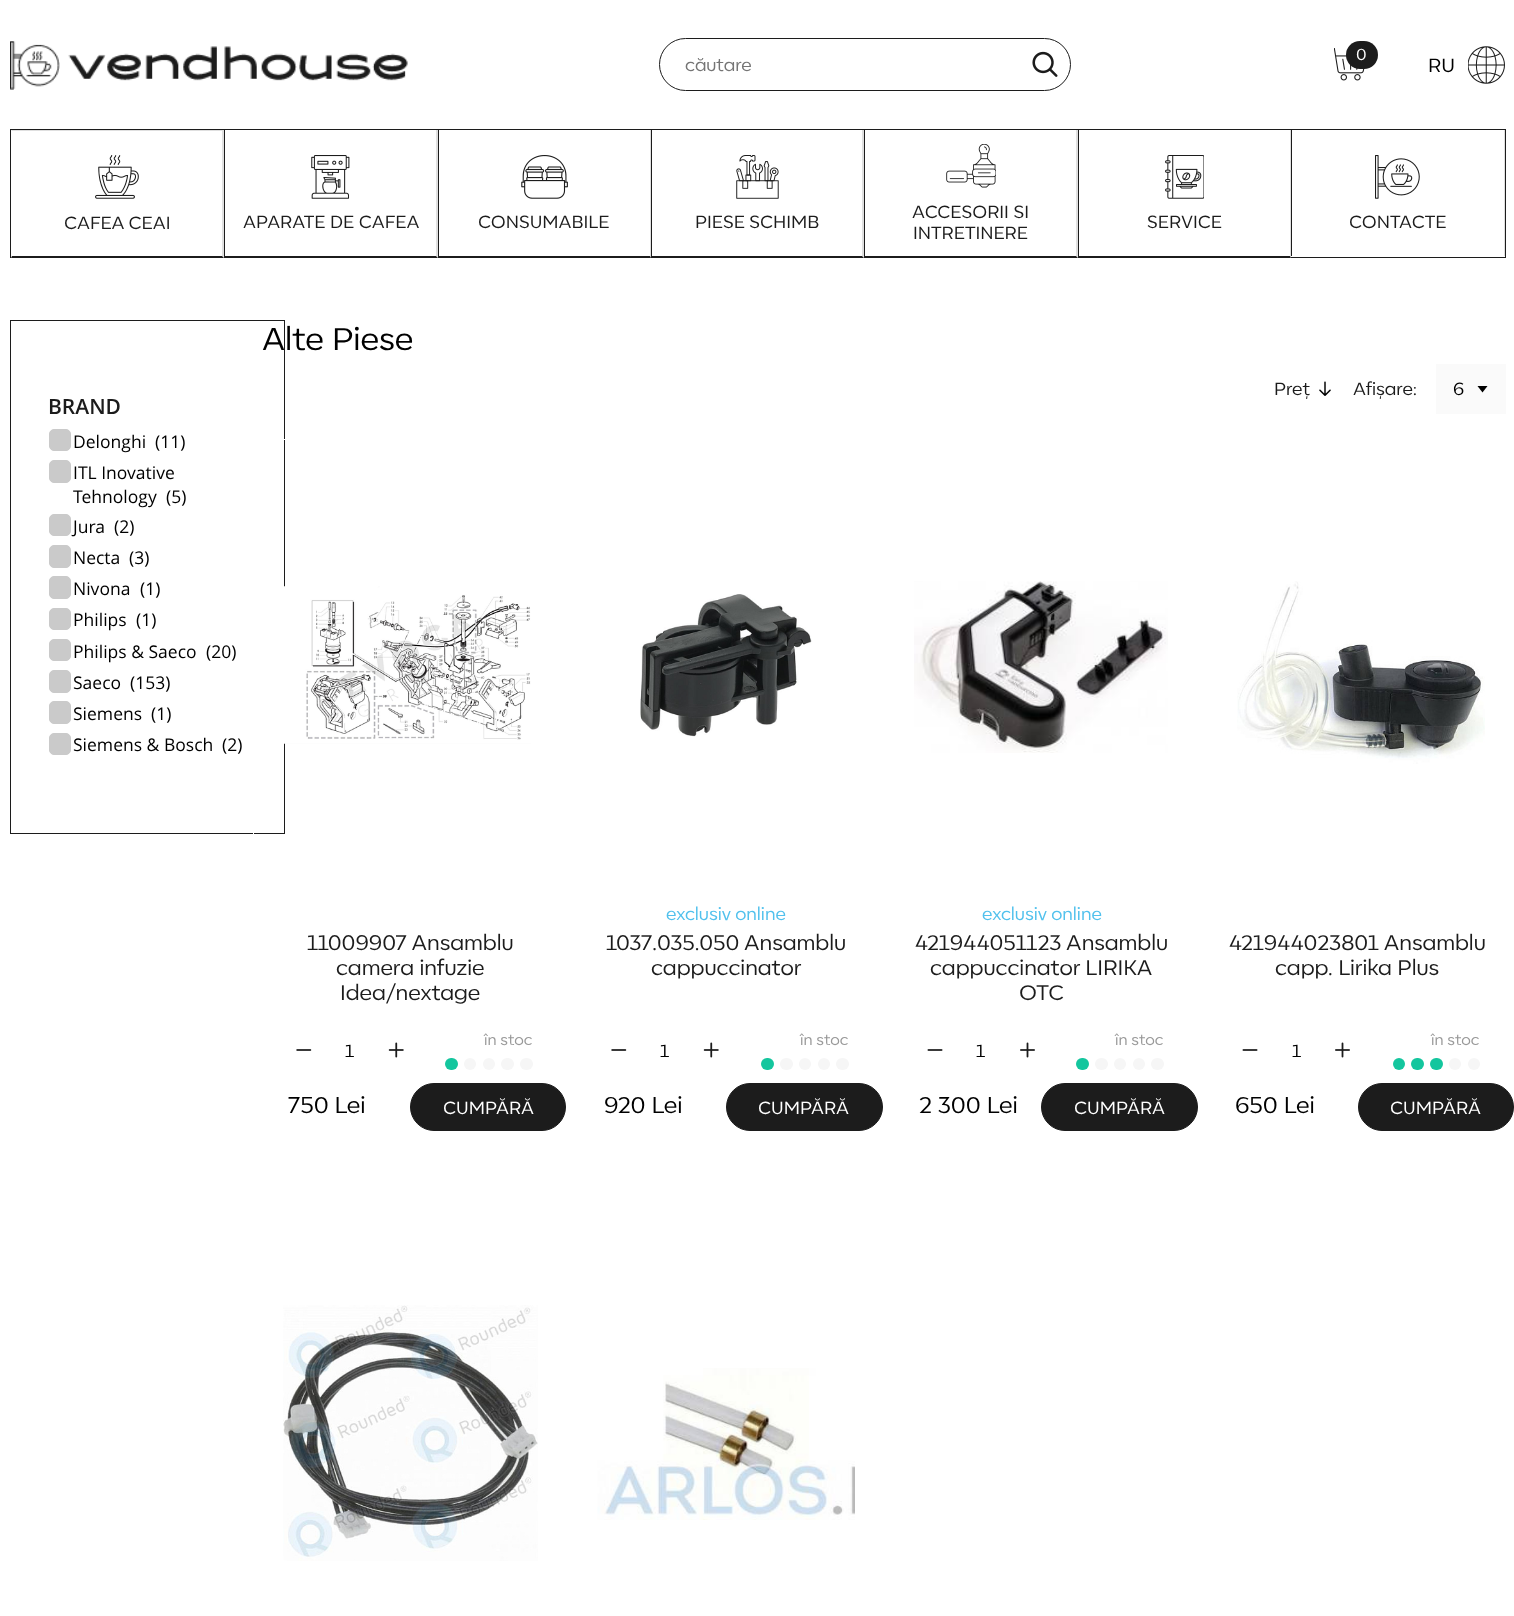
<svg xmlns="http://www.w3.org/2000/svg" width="1514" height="1616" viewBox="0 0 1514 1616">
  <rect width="100%" height="100%" fill="#ffffff"/>
  <image x="10" y="41" width="398" height="49" href="img1.png"/>
  <rect x="659.5" y="38.5" width="411" height="52" rx="26" fill="none" stroke="#1c1c1c"/>
  <text x="685" y="71" font-family="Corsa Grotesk" font-size="17.5" fill="#757575">căutare</text>
  <image x="1032" y="51" width="26" height="26" href="img2.png"/>
  <image x="1334" y="48" width="31" height="33" href="img3.png"/>
  <rect x="1346" y="41" width="32" height="28" rx="14" fill="#1c1c1c"/>
  <text x="1356" y="60" font-family="Corsa Grotesk" font-size="16" fill="#ffffff">0</text>
  <text x="1428" y="72" font-family="Corsa Grotesk" font-size="19" fill="#000000">RU</text>
  <image x="1468" y="46" width="37" height="38" href="img4.png"/>
  <rect x="10.5" y="129.5" width="1495" height="128" fill="none" stroke="#1c1c1c"/>
  <rect x="11" y="257" width="213" height="1" fill="#ffffff"/>
  <path d="M11 130H224L222 131H12Z" fill="#dfdfdf"/>
  <path d="M224 130V258L222 256V131Z" fill="#000000" fill-opacity="0.12"/>
  <path d="M224 258H11L12 256H222Z" fill="#1c1c1c"/>
  <image x="95" y="155" width="44" height="44" href="img5.png"/>
  <text x="64" y="229" font-family="Corsa Grotesk" font-size="17.5" fill="#1c1c1c">CAFEA CEAI</text>
  <rect x="225" y="257" width="213" height="1" fill="#ffffff"/>
  <path d="M438 130V258L436 256V130Z" fill="#dfdfdf"/>
  <path d="M438 258H224L225 256H436Z" fill="#1c1c1c"/>
  <rect x="224" y="130" width="1" height="128" fill="#1c1c1c"/>
  <image x="311" y="155" width="39" height="44" href="img6.png"/>
  <text x="243" y="228" font-family="Corsa Grotesk" font-size="17.5" fill="#1c1c1c">APARATE DE CAFEA</text>
  <rect x="439" y="257" width="212" height="1" fill="#ffffff"/>
  <path d="M651 130V258L650 256V130Z" fill="#dfdfdf"/>
  <path d="M651 258H438L439 256H650Z" fill="#1c1c1c"/>
  <rect x="438" y="130" width="1" height="128" fill="#1c1c1c"/>
  <image x="521" y="155" width="47" height="44" href="img7.png"/>
  <text x="478" y="228" font-family="Corsa Grotesk" font-size="17.5" fill="#1c1c1c">CONSUMABILE</text>
  <rect x="652" y="257" width="212" height="1" fill="#ffffff"/>
  <path d="M864 130V258L862 256V130Z" fill="#dfdfdf"/>
  <path d="M864 258H651L652 256H862Z" fill="#1c1c1c"/>
  <rect x="651" y="130" width="1" height="128" fill="#1c1c1c"/>
  <image x="736" y="155" width="43" height="44" href="img8.png"/>
  <text x="695" y="228" font-family="Corsa Grotesk" font-size="17.5" fill="#1c1c1c">PIESE SCHIMB</text>
  <rect x="865" y="257" width="213" height="1" fill="#ffffff"/>
  <path d="M1078 130V258L1076 256V130Z" fill="#dfdfdf"/>
  <path d="M1078 258H864L865 256H1076Z" fill="#1c1c1c"/>
  <rect x="864" y="130" width="1" height="128" fill="#1c1c1c"/>
  <image x="946" y="144" width="50" height="44" href="img9.png"/>
  <text x="912" y="218" font-family="Corsa Grotesk" font-size="17.5" fill="#1c1c1c">ACCESORII SI</text>
  <text x="913" y="239" font-family="Corsa Grotesk" font-size="17.5" fill="#1c1c1c">INTRETINERE</text>
  <rect x="1079" y="257" width="212" height="1" fill="#ffffff"/>
  <path d="M1291 130V258L1290 256V130Z" fill="#dfdfdf"/>
  <path d="M1291 258H1078L1079 256H1290Z" fill="#1c1c1c"/>
  <rect x="1078" y="130" width="1" height="128" fill="#1c1c1c"/>
  <image x="1165" y="155" width="39" height="44" href="img10.png"/>
  <text x="1147" y="228" font-family="Corsa Grotesk" font-size="17.5" fill="#1c1c1c">SERVICE</text>
  <rect x="1504" y="130" width="1" height="126" fill="#dfdfdf"/>
  <rect x="1291" y="130" width="1" height="126" fill="#1c1c1c"/>
  <image x="1375" y="155" width="45" height="44" href="img11.png"/>
  <text x="1349" y="228" font-family="Corsa Grotesk" font-size="17.5" fill="#1c1c1c">CONTACTE</text>
  <rect x="10.5" y="320.5" width="274" height="513" fill="none" stroke="#1c1c1c"/>
  <text x="48" y="414" font-family="Open Sans" font-size="21" font-weight="600" fill="#1c1c1c">BRAND</text>
  <rect x="49.5" y="429.5" width="21" height="21" rx="4.5" fill="#cacaca" stroke="#cacaca"/>
  <text x="73" y="448" font-family="Open Sans" font-size="17.5" fill="#000000">Delonghi</text>
  <text x="155" y="448" font-family="Open Sans" font-size="17.5" fill="#000000">(11)</text>
  <rect x="49.5" y="460.5" width="21" height="22" rx="4.5" fill="#cacaca" stroke="#cacaca"/>
  <text x="73" y="479" font-family="Open Sans" font-size="17.5" fill="#000000">ITL Inovative</text>
  <text x="73" y="503" font-family="Open Sans" font-size="17.5" fill="#000000">Tehnology</text>
  <text x="166" y="503" font-family="Open Sans" font-size="17.5" fill="#000000">(5)</text>
  <rect x="49.5" y="514.5" width="21" height="21" rx="4.5" fill="#cacaca" stroke="#cacaca"/>
  <text x="73" y="533" font-family="Open Sans" font-size="17.5" fill="#000000">Jura</text>
  <text x="114" y="533" font-family="Open Sans" font-size="17.5" fill="#000000">(2)</text>
  <rect x="49.5" y="545.5" width="21" height="22" rx="4.5" fill="#cacaca" stroke="#cacaca"/>
  <text x="73" y="564" font-family="Open Sans" font-size="17.5" fill="#000000">Necta</text>
  <text x="129" y="564" font-family="Open Sans" font-size="17.5" fill="#000000">(3)</text>
  <rect x="49.5" y="576.5" width="21" height="22" rx="4.5" fill="#cacaca" stroke="#cacaca"/>
  <text x="73" y="595" font-family="Open Sans" font-size="17.5" fill="#000000">Nivona</text>
  <text x="140" y="595" font-family="Open Sans" font-size="17.5" fill="#000000">(1)</text>
  <rect x="49.5" y="608.5" width="21" height="21" rx="4.5" fill="#cacaca" stroke="#cacaca"/>
  <text x="73" y="626" font-family="Open Sans" font-size="17.5" fill="#000000">Philips</text>
  <text x="136" y="626" font-family="Open Sans" font-size="17.5" fill="#000000">(1)</text>
  <rect x="49.5" y="639.5" width="21" height="21" rx="4.5" fill="#cacaca" stroke="#cacaca"/>
  <text x="73" y="658" font-family="Open Sans" font-size="17.5" fill="#000000">Philips &amp; Saeco</text>
  <text x="206" y="658" font-family="Open Sans" font-size="17.5" fill="#000000">(20)</text>
  <rect x="49.5" y="670.5" width="21" height="22" rx="4.5" fill="#cacaca" stroke="#cacaca"/>
  <text x="73" y="689" font-family="Open Sans" font-size="17.5" fill="#000000">Saeco</text>
  <text x="130" y="689" font-family="Open Sans" font-size="17.5" fill="#000000">(153)</text>
  <rect x="49.5" y="701.5" width="21" height="22" rx="4.5" fill="#cacaca" stroke="#cacaca"/>
  <text x="73" y="720" font-family="Open Sans" font-size="17.5" fill="#000000">Siemens</text>
  <text x="151" y="720" font-family="Open Sans" font-size="17.5" fill="#000000">(1)</text>
  <rect x="49.5" y="733.5" width="21" height="21" rx="4.5" fill="#cacaca" stroke="#cacaca"/>
  <text x="73" y="751" font-family="Open Sans" font-size="17.5" fill="#000000">Siemens &amp; Bosch</text>
  <text x="222" y="751" font-family="Open Sans" font-size="17.5" fill="#000000">(2)</text>
  <text x="262" y="350" font-family="Corsa Grotesk" font-size="31.25" fill="#000000">Alte Piese</text>
  <text x="1274" y="395" font-family="Corsa Grotesk" font-size="17.5" fill="#1c1c1c">Preţ</text>
  <image x="1319" y="381" width="12" height="15" href="img12.png"/>
  <text x="1353" y="395" font-family="Corsa Grotesk" font-size="17.5" fill="#1c1c1c">Afișare:</text>
  <rect x="1436" y="364" width="70" height="50" fill="#fafafa"/>
  <text x="1453" y="395" font-family="Corsa Grotesk" font-size="17.5" fill="#000000">6</text>
  <path d="M1477.5 386H1487.5L1482.5 392.5Z" fill="#000000"/>
  <rect x="253.5" y="439.5" width="315" height="730" fill="none" stroke="#ffffff"/>
  <image x="284" y="586" width="247" height="158" href="img13.png"/>
  <text x="307" y="950" font-family="Corsa Grotesk" font-size="21" fill="#1c1c1c">11009907 Ansamblu</text>
  <text x="336" y="975" font-family="Corsa Grotesk" font-size="21" fill="#1c1c1c">camera infuzie</text>
  <text x="340" y="1000" font-family="Corsa Grotesk" font-size="21" fill="#1c1c1c">Idea/nextage</text>
  <text x="484" y="1045" font-family="Corsa Grotesk" font-size="15" fill="#999999">în stoc</text>
  <rect x="445" y="1058" width="13" height="12" rx="6" fill="#14c69e"/>
  <circle cx="470" cy="1064" r="6" fill="#f6f6f6"/>
  <circle cx="489" cy="1064" r="6" fill="#f6f6f6"/>
  <rect x="501" y="1058" width="13" height="12" rx="6" fill="#f6f6f6"/>
  <rect x="520" y="1058" width="13" height="12" rx="6" fill="#f6f6f6"/>
  <image x="296" y="1049" width="16" height="2" href="img14.png"/>
  <text x="345" y="1057" font-family="Corsa Grotesk" font-size="17.5" fill="#000000">1</text>
  <image x="388" y="1042" width="16" height="16" href="img15.png"/>
  <text x="288" y="1113" font-family="Corsa Grotesk" font-size="22.75" fill="#000000">750 Lei</text>
  <rect x="410.5" y="1083.5" width="155" height="47" rx="23.5" fill="#1c1c1c" stroke="#1c1c1c"/>
  <text x="443" y="1114" font-family="Corsa Grotesk" font-size="17.5" fill="#ffffff">CUMPĂRĂ</text>
  <image x="640" y="594" width="172" height="143" href="img16.png"/>
  <text x="666" y="920" font-family="Corsa Grotesk" font-size="17.5" fill="#51c1ed">exclusiv online</text>
  <text x="606" y="950" font-family="Corsa Grotesk" font-size="21" fill="#1c1c1c">1037.035.050 Ansamblu</text>
  <text x="651" y="975" font-family="Corsa Grotesk" font-size="21" fill="#1c1c1c">cappuccinator</text>
  <text x="800" y="1045" font-family="Corsa Grotesk" font-size="15" fill="#999999">în stoc</text>
  <rect x="761" y="1058" width="13" height="12" rx="6" fill="#14c69e"/>
  <rect x="780" y="1058" width="13" height="12" rx="6" fill="#f6f6f6"/>
  <circle cx="805" cy="1064" r="6" fill="#f6f6f6"/>
  <circle cx="824" cy="1064" r="6" fill="#f6f6f6"/>
  <rect x="836" y="1058" width="13" height="12" rx="6" fill="#f6f6f6"/>
  <image x="611" y="1049" width="16" height="2" href="img14.png"/>
  <text x="660" y="1057" font-family="Corsa Grotesk" font-size="17.5" fill="#000000">1</text>
  <image x="703" y="1042" width="16" height="16" href="img15.png"/>
  <text x="604" y="1113" font-family="Corsa Grotesk" font-size="22.75" fill="#000000">920 Lei</text>
  <rect x="726.5" y="1083.5" width="156" height="47" rx="23.5" fill="#1c1c1c" stroke="#1c1c1c"/>
  <text x="758" y="1114" font-family="Corsa Grotesk" font-size="17.5" fill="#ffffff">CUMPĂRĂ</text>
  <image x="914" y="581" width="254" height="172" href="img17.png"/>
  <text x="982" y="920" font-family="Corsa Grotesk" font-size="17.5" fill="#51c1ed">exclusiv online</text>
  <text x="915" y="950" font-family="Corsa Grotesk" font-size="21" fill="#1c1c1c">421944051123 Ansamblu</text>
  <text x="930" y="975" font-family="Corsa Grotesk" font-size="21" fill="#1c1c1c">cappuccinator LIRIKA</text>
  <text x="1019" y="1000" font-family="Corsa Grotesk" font-size="21" fill="#1c1c1c">OTC</text>
  <text x="1115" y="1045" font-family="Corsa Grotesk" font-size="15" fill="#999999">în stoc</text>
  <rect x="1076" y="1058" width="13" height="12" rx="6" fill="#14c69e"/>
  <rect x="1095" y="1058" width="13" height="12" rx="6" fill="#f6f6f6"/>
  <circle cx="1120" cy="1064" r="6" fill="#f6f6f6"/>
  <circle cx="1139" cy="1064" r="6" fill="#f6f6f6"/>
  <rect x="1151" y="1058" width="13" height="12" rx="6" fill="#f6f6f6"/>
  <image x="927" y="1049" width="16" height="2" href="img18.png"/>
  <text x="976" y="1057" font-family="Corsa Grotesk" font-size="17.5" fill="#000000">1</text>
  <image x="1020" y="1042" width="15" height="16" href="img19.png"/>
  <text x="919" y="1113" font-family="Corsa Grotesk" font-size="22.75" fill="#000000">2 300 Lei</text>
  <rect x="1041.5" y="1083.5" width="156" height="47" rx="23.5" fill="#1c1c1c" stroke="#1c1c1c"/>
  <text x="1074" y="1114" font-family="Corsa Grotesk" font-size="17.5" fill="#ffffff">CUMPĂRĂ</text>
  <image x="1237" y="581" width="248" height="183" href="img20.png"/>
  <text x="1229" y="950" font-family="Corsa Grotesk" font-size="21" fill="#1c1c1c">421944023801 Ansamblu</text>
  <text x="1275" y="975" font-family="Corsa Grotesk" font-size="21" fill="#1c1c1c">capp. Lirika Plus</text>
  <text x="1431" y="1045" font-family="Corsa Grotesk" font-size="15" fill="#999999">în stoc</text>
  <circle cx="1399" cy="1064" r="6" fill="#14c69e"/>
  <rect x="1411" y="1058" width="13" height="12" rx="6" fill="#14c69e"/>
  <rect x="1430" y="1058" width="13" height="12" rx="6" fill="#14c69e"/>
  <circle cx="1455" cy="1064" r="6" fill="#f6f6f6"/>
  <circle cx="1474" cy="1064" r="6" fill="#f6f6f6"/>
  <image x="1242" y="1049" width="16" height="2" href="img18.png"/>
  <text x="1292" y="1057" font-family="Corsa Grotesk" font-size="17.5" fill="#000000">1</text>
  <image x="1335" y="1042" width="15" height="16" href="img19.png"/>
  <text x="1235" y="1113" font-family="Corsa Grotesk" font-size="22.75" fill="#000000">650 Lei</text>
  <rect x="1358.5" y="1083.5" width="155" height="47" rx="23.5" fill="#1c1c1c" stroke="#1c1c1c"/>
  <text x="1390" y="1114" font-family="Corsa Grotesk" font-size="17.5" fill="#ffffff">CUMPĂRĂ</text>
  <image x="283" y="1305" width="255" height="256" href="img21.png"/>
  <image x="597" y="1368" width="258" height="152" href="img22.png"/>
</svg>
